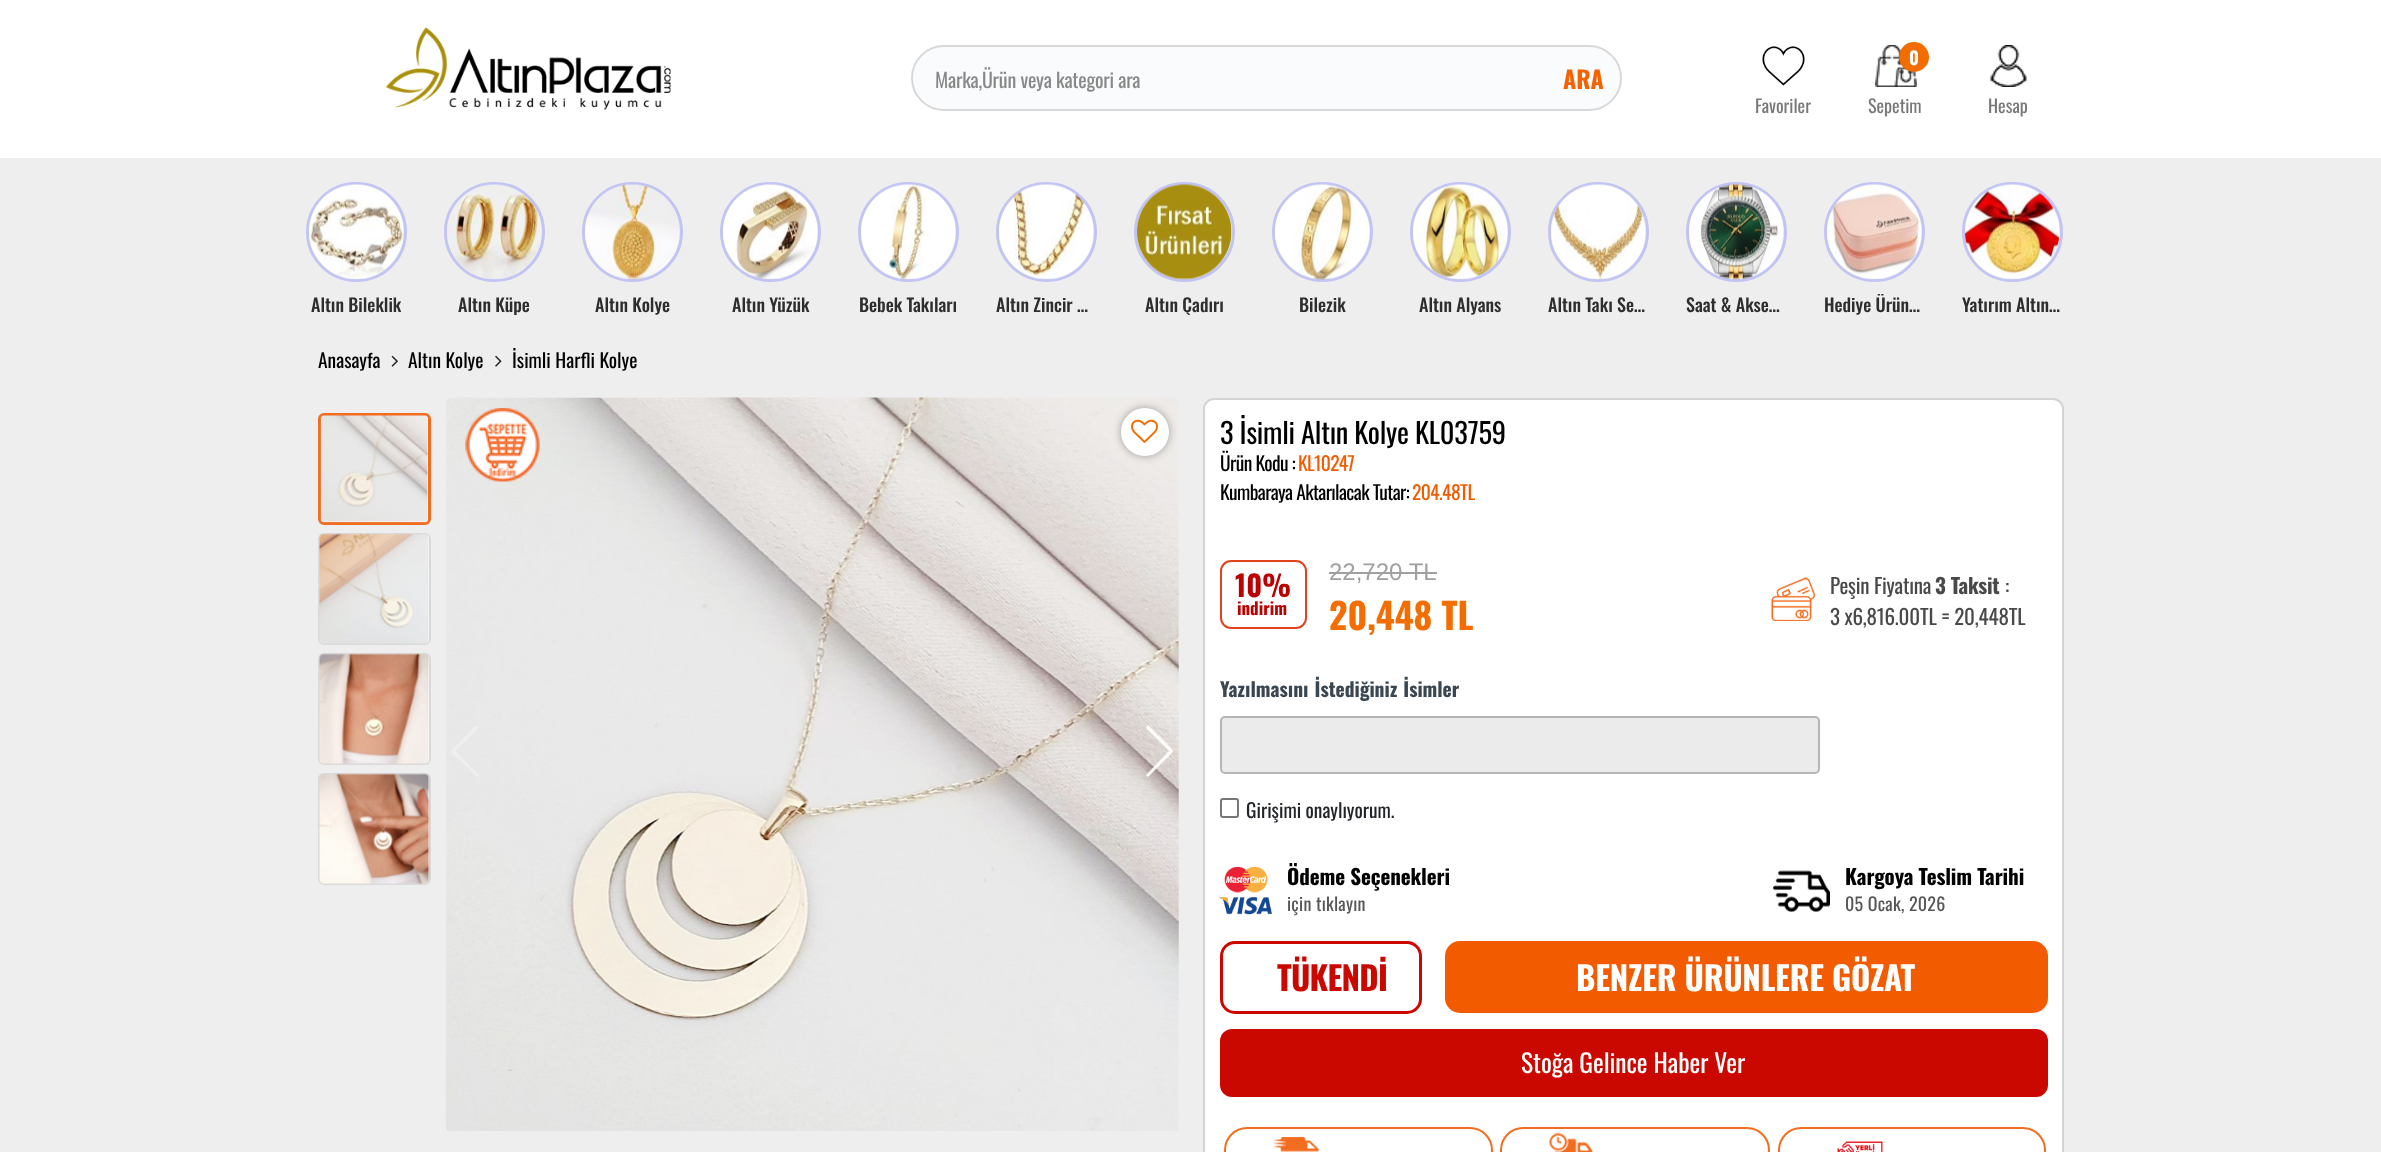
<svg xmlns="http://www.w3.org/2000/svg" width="2381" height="1152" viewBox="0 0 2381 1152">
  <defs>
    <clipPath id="clip1"><rect x="444" y="294" width="101" height="21"/></clipPath>
    <clipPath id="clip2"><rect x="1134" y="294" width="101" height="21"/></clipPath>
    <clipPath id="clip3"><rect x="1824" y="294" width="101" height="21"/></clipPath>
    <filter id="blur1" x="-50%" y="-200%" width="200%" height="500%"><feGaussianBlur stdDeviation="4"/></filter>
  </defs>
  <rect width="100%" height="100%" fill="#eeeeee"/>
  <rect x="0" y="0" width="2381" height="158" fill="#ffffff"/>
  <image x="385" y="27" width="286" height="83" href="img1.png"/>
  <rect x="912" y="46" width="709" height="64" rx="32" fill="#f9fbfc" stroke="#d8d8d8" stroke-width="2"/>
  <text x="935" y="88" font-family="Oswald" font-size="20" letter-spacing="-0.2" fill="#888888">Marka,Ürün veya kategori ara</text>
  <text x="1563" y="89" font-family="Oswald" font-size="24" font-weight="bold" fill="#f66200">ARA</text>
  <image x="1762" y="46" width="43" height="40" href="img2.png"/>
  <text x="1755" y="113" font-family="Oswald" font-size="18" fill="#787878">Favoriler</text>
  <image x="1875" y="45" width="42" height="42" href="img3.png"/>
  <circle cx="1914" cy="57" r="15" fill="#f16d02"/>
  <text x="1909" y="65" font-family="Oswald" font-size="18" font-weight="bold" fill="#ffffff">0</text>
  <text x="1868" y="113" font-family="Oswald" font-size="18" fill="#787878">Sepetim</text>
  <image x="1990" y="45" width="37" height="42" href="img4.png"/>
  <text x="1988" y="113" font-family="Oswald" font-size="18" fill="#787878">Hesap</text>
  <rect x="307.5" y="183.5" width="98" height="97" rx="48.5" fill="none" stroke="#c2c4f3" stroke-width="3"/>
  <image x="309" y="184" width="95" height="96" href="img5.png"/>
  <text x="311" y="312" font-family="Oswald" font-size="18" font-weight="500" fill="#2d2d2d">Altın Bileklik</text>
  <rect x="445.5" y="183.5" width="98" height="97" rx="48.5" fill="none" stroke="#c2c4f3" stroke-width="3"/>
  <image x="447" y="184" width="94" height="96" href="img6.png"/>
  <g clip-path="url(#clip1)">
    <text x="458" y="312" font-family="Oswald" font-size="18" font-weight="500" fill="#2d2d2d">Altın Küpe</text>
  </g>
  <rect x="583.5" y="183.5" width="98" height="97" rx="48.5" fill="none" stroke="#c2c4f3" stroke-width="3"/>
  <image x="585" y="184" width="94" height="96" href="img7.png"/>
  <text x="595" y="312" font-family="Oswald" font-size="18" font-weight="500" fill="#2d2d2d">Altın Kolye</text>
  <rect x="721.5" y="183.5" width="98" height="97" rx="48.5" fill="none" stroke="#c2c4f3" stroke-width="3"/>
  <image x="723" y="184" width="95" height="96" href="img8.png"/>
  <text x="732" y="312" font-family="Oswald" font-size="18" font-weight="500" fill="#2d2d2d">Altın Yüzük</text>
  <rect x="859.5" y="183.5" width="98" height="97" rx="48.5" fill="none" stroke="#c2c4f3" stroke-width="3"/>
  <image x="861" y="184" width="95" height="96" href="img9.png"/>
  <text x="859" y="312" font-family="Oswald" font-size="18" font-weight="500" fill="#2d2d2d">Bebek Takıları</text>
  <rect x="997.5" y="183.5" width="98" height="97" rx="48.5" fill="none" stroke="#c2c4f3" stroke-width="3"/>
  <image x="999" y="184" width="95" height="96" href="img10.png"/>
  <text x="996" y="312" font-family="Oswald" font-size="18" font-weight="500" fill="#2d2d2d">Altın Zincir …</text>
  <rect x="1135.5" y="183.5" width="98" height="97" rx="48.5" fill="none" stroke="#c2c4f3" stroke-width="3"/>
  <image x="1137" y="184" width="95" height="96" href="img11.png"/>
  <g clip-path="url(#clip2)">
    <text x="1145" y="312" font-family="Oswald" font-size="18" font-weight="500" fill="#2d2d2d">Altın Çadırı</text>
  </g>
  <rect x="1273.5" y="183.5" width="98" height="97" rx="48.5" fill="none" stroke="#c2c4f3" stroke-width="3"/>
  <image x="1275" y="184" width="95" height="96" href="img12.png"/>
  <text x="1299" y="312" font-family="Oswald" font-size="18" font-weight="500" fill="#2d2d2d">Bilezik</text>
  <rect x="1411.5" y="183.5" width="98" height="97" rx="48.5" fill="none" stroke="#c2c4f3" stroke-width="3"/>
  <image x="1413" y="184" width="95" height="96" href="img13.png"/>
  <text x="1419" y="312" font-family="Oswald" font-size="18" font-weight="500" fill="#2d2d2d">Altın Alyans</text>
  <rect x="1549.5" y="183.5" width="98" height="97" rx="48.5" fill="none" stroke="#c2c4f3" stroke-width="3"/>
  <image x="1551" y="184" width="95" height="96" href="img14.png"/>
  <text x="1548" y="312" font-family="Oswald" font-size="18" font-weight="500" fill="#2d2d2d">Altın Takı Se…</text>
  <rect x="1687.5" y="183.5" width="98" height="97" rx="48.5" fill="none" stroke="#c2c4f3" stroke-width="3"/>
  <image x="1689" y="184" width="95" height="96" href="img15.png"/>
  <text x="1686" y="312" font-family="Oswald" font-size="18" font-weight="500" fill="#2d2d2d">Saat &amp; Akse…</text>
  <rect x="1825.5" y="183.5" width="98" height="97" rx="48.5" fill="none" stroke="#c2c4f3" stroke-width="3"/>
  <image x="1827" y="184" width="95" height="96" href="img16.png"/>
  <g clip-path="url(#clip3)">
    <text x="1824" y="312" font-family="Oswald" font-size="18" font-weight="500" fill="#2d2d2d">Hediye Ürün…</text>
  </g>
  <rect x="1963.5" y="183.5" width="98" height="97" rx="48.5" fill="none" stroke="#c2c4f3" stroke-width="3"/>
  <image x="1965" y="184" width="95" height="96" href="img17.png"/>
  <text x="1962" y="312" font-family="Oswald" font-size="18" font-weight="500" fill="#2d2d2d">Yatırım Altın…</text>
  <text x="318" y="368" font-family="Oswald" font-size="19.5" fill="#000000">Anasayfa</text>
  <image x="391" y="355" width="7" height="12" href="img18.png"/>
  <text x="408" y="368" font-family="Oswald" font-size="19.5" fill="#000000">Altın Kolye</text>
  <image x="495" y="355" width="7" height="12" href="img19.png"/>
  <text x="512" y="368" font-family="Oswald" font-size="19.5" fill="#000000">İsimli Harfli Kolye</text>
  <image x="446" y="397" width="733" height="734" href="img21.png"/>
  <rect x="1121" y="408" width="48" height="48" rx="24" fill="#000000" fill-opacity="0.34" filter="url(#blur1)"/>
  <circle cx="1145" cy="432" r="24" fill="#ffffff"/>
  <image x="1131" y="419" width="27" height="24" href="img20.png"/>
  <path d="M475 726C477 725 479 726 479 728C479 729 458 749 455 751C458 754 479 774 479 775C478 779 474 775 472 772L456 757C450 751 450 752 456 746Z" fill="#efefef"/>
  <path d="M1147 776C1146 776 1146 775 1147 774L1169 751L1147 729C1146 728 1146 727 1147 726C1147 725 1148 725 1149 726L1172 749L1173 751L1172 753L1149 776C1148 777 1147 777 1147 776Z" fill="#ffffff" fill-opacity="0.89"/>
  <rect x="319.5" y="414.5" width="110" height="109" rx="4.5" fill="#ffffff" stroke="#f26d20" stroke-width="3"/>
  <image x="320" y="415" width="108" height="108" href="img22.png"/>
  <rect x="319" y="534" width="111" height="110" rx="5" fill="#ffffff" stroke="#dadada" stroke-width="2"/>
  <image x="319" y="533" width="110" height="111" href="img23.png"/>
  <rect x="319" y="654" width="111" height="110" rx="5" fill="#ffffff" stroke="#dadada" stroke-width="2"/>
  <image x="319" y="653" width="110" height="111" href="img24.png"/>
  <rect x="319" y="774" width="111" height="110" rx="5" fill="#ffffff" stroke="#dadada" stroke-width="2"/>
  <image x="319" y="773" width="111" height="111" href="img25.png"/>
  <image x="465" y="408" width="75" height="74" href="img26.png"/>
  <rect x="1204" y="399" width="859" height="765" rx="10" fill="#ffffff" stroke="#d3d3d3" stroke-width="2"/>
  <text x="1220" y="444" font-family="Oswald" font-size="28.5" letter-spacing="-0.25" fill="#000000">3 İsimli Altın Kolye KL03759</text>
  <text x="1220" y="471" font-family="Oswald" font-size="19.5" letter-spacing="-0.6" fill="#000000">Ürün Kodu :</text>
  <text x="1298" y="471" font-family="Oswald" font-size="19.5" letter-spacing="-0.6" fill="#f35b00">KL10247</text>
  <text x="1220" y="500" font-family="Oswald" font-size="19.5" letter-spacing="-0.6" fill="#000000">Kumbaraya Aktarılacak Tutar:</text>
  <text x="1412" y="500" font-family="Oswald" font-size="19.5" letter-spacing="-0.6" fill="#f35b00">204.48TL</text>
  <rect x="1221" y="561" width="85" height="67" rx="10" fill="none" stroke="#e2431e" stroke-width="2"/>
  <text x="1235" y="597" font-family="Oswald" font-size="29" font-weight="bold" fill="#bb0202">10%</text>
  <text x="1237" y="615" font-family="Oswald" font-size="17" font-weight="bold" fill="#bb0202">indirim</text>
  <text x="1329" y="580" font-family="Liberation Sans" font-size="24" fill="#a0a0a0">22,720 TL</text>
  <rect x="1329" y="572" width="108" height="2" fill="#a0a0a0"/>
  <text x="1329" y="630" font-family="Oswald" font-size="36" font-weight="bold" fill="#f36d00">20,448 TL</text>
  <image x="1771" y="577" width="44" height="44" href="img27.png"/>
  <text x="1830" y="594" font-family="Oswald" font-size="21" letter-spacing="-0.2" fill="#494949">Peşin Fiyatına</text>
  <text x="1935" y="594" font-family="Oswald" font-size="21" font-weight="bold" letter-spacing="-0.2" fill="#494949">3 Taksit</text>
  <text x="2005" y="594" font-family="Oswald" font-size="21" letter-spacing="-0.2" fill="#494949">:</text>
  <text x="1830" y="625" font-family="Oswald" font-size="21" letter-spacing="-0.2" fill="#494949">3 x6,816.00TL = 20,448TL</text>
  <text x="1220" y="697" word-spacing="1" font-family="Oswald" font-size="19.5" font-weight="bold" fill="#3a4650">Yazılmasını İstediğiniz İsimler</text>
  <rect x="1221" y="717" width="598" height="56" rx="4" fill="#ebebeb" stroke="#b5b5b5" stroke-width="2"/>
  <rect x="1221" y="799" width="17" height="18" rx="2" fill="none" stroke="#767676" stroke-width="2"/>
  <text x="1246" y="818" font-family="Oswald" font-size="19.5" fill="#212529">Girişimi onaylıyorum.</text>
  <image x="1219" y="867" width="53" height="48" href="img28.png"/>
  <text x="1287" y="885" font-family="Oswald" font-size="21" font-weight="bold" letter-spacing="-0.1" fill="#000000">Ödeme Seçenekleri</text>
  <text x="1287" y="911" font-family="Oswald" font-size="18" letter-spacing="0.25" fill="#575757">için tıklayın</text>
  <image x="1773" y="870" width="57" height="42" href="img29.png"/>
  <text x="1845" y="885" font-family="Oswald" font-size="21" font-weight="bold" letter-spacing="-0.1" fill="#000000">Kargoya Teslim Tarihi</text>
  <text x="1845" y="911" font-family="Oswald" font-size="18" letter-spacing="0.25" fill="#575757">05 Ocak, 2026</text>
  <rect x="1221.5" y="942.5" width="199" height="70" rx="13.5" fill="none" stroke="#cb0800" stroke-width="3"/>
  <text x="1277" y="991" font-family="Oswald" font-size="33" font-weight="bold" letter-spacing="-0.75" fill="#cb0800">TÜKENDİ</text>
  <rect x="1445" y="941" width="603" height="72" rx="15" fill="#f35b00"/>
  <text x="1576" y="991" font-family="Oswald" font-size="33" font-weight="bold" letter-spacing="-0.2" fill="#ffffff">BENZER ÜRÜNLERE GÖZAT</text>
  <rect x="1220" y="1029" width="828" height="68" rx="12" fill="#cb0800"/>
  <text x="1521" y="1073" font-family="Oswald" font-size="25.5" fill="#ffffff">Stoğa Gelince Haber Ver</text>
  <rect x="1225" y="1128" width="267" height="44" rx="22" fill="none" stroke="#f26d20" stroke-width="2"/>
  <image x="1273" y="1137" width="46" height="15" href="img30.png"/>
  <rect x="1501" y="1128" width="268" height="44" rx="22" fill="none" stroke="#f26d20" stroke-width="2"/>
  <image x="1549" y="1132" width="44" height="20" href="img31.png"/>
  <rect x="1779" y="1128" width="266" height="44" rx="22" fill="none" stroke="#f26d20" stroke-width="2"/>
  <image x="1837" y="1141" width="46" height="11" href="img32.png"/>
</svg>
